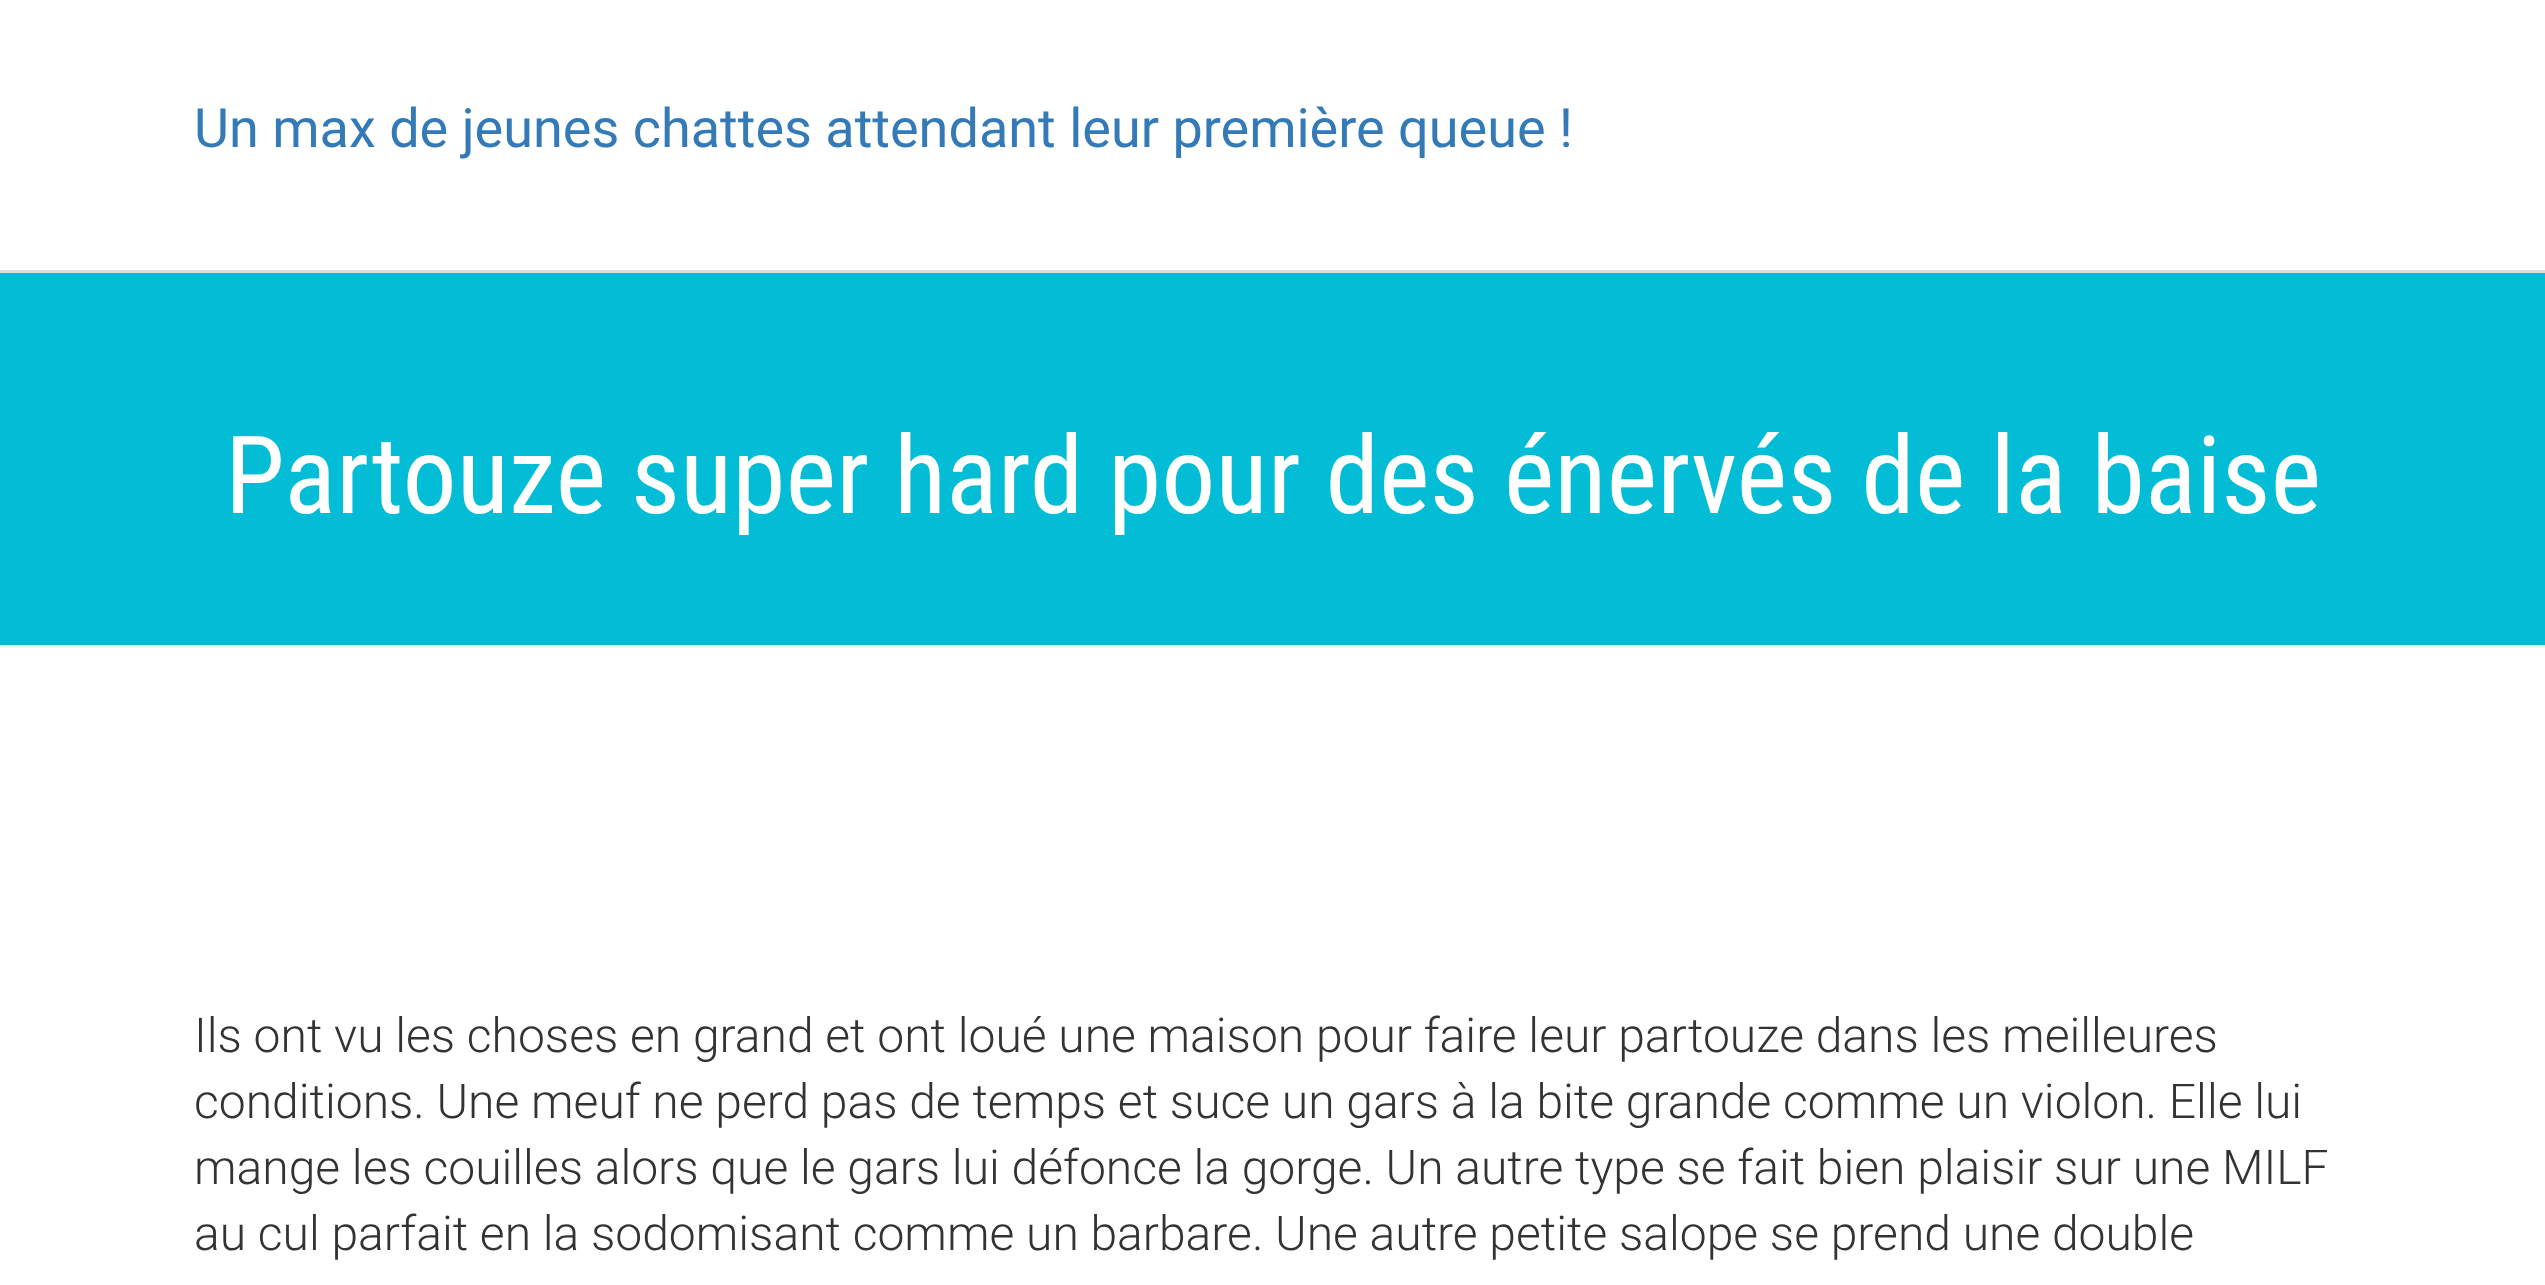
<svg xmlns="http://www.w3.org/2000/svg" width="2545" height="1285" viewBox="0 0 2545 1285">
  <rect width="100%" height="100%" fill="#ffffff"/>
  <rect x="0" y="270" width="2545" height="3" fill="#dedede"/>
  <text x="194" y="147" font-family="Roboto" font-size="54" fill="#337ab7">Un max de jeunes chattes attendant leur première queue !</text>
  <rect x="0" y="273" width="2545" height="372" fill="#02bdd5"/>
  <text x="225" y="513" font-family="Roboto Condensed" font-size="108" fill="#ffffff">Partouze super hard pour des énervés de la baise</text>
  <text x="194" y="1052" font-family="Roboto" font-size="48" font-weight="300" fill="#333333">Ils ont vu les choses en grand et ont loué une maison pour faire leur partouze dans les meilleures</text>
  <text x="194" y="1118" font-family="Roboto" font-size="48" font-weight="300" fill="#333333">conditions. Une meuf ne perd pas de temps et suce un gars à la bite grande comme un violon. Elle lui</text>
  <text x="194" y="1184" font-family="Roboto" font-size="48" font-weight="300" fill="#333333">mange les couilles alors que le gars lui défonce la gorge. Un autre type se fait bien plaisir sur une MILF</text>
  <text x="194" y="1250" font-family="Roboto" font-size="48" font-weight="300" fill="#333333">au cul parfait en la sodomisant comme un barbare. Une autre petite salope se prend une double</text>
</svg>
